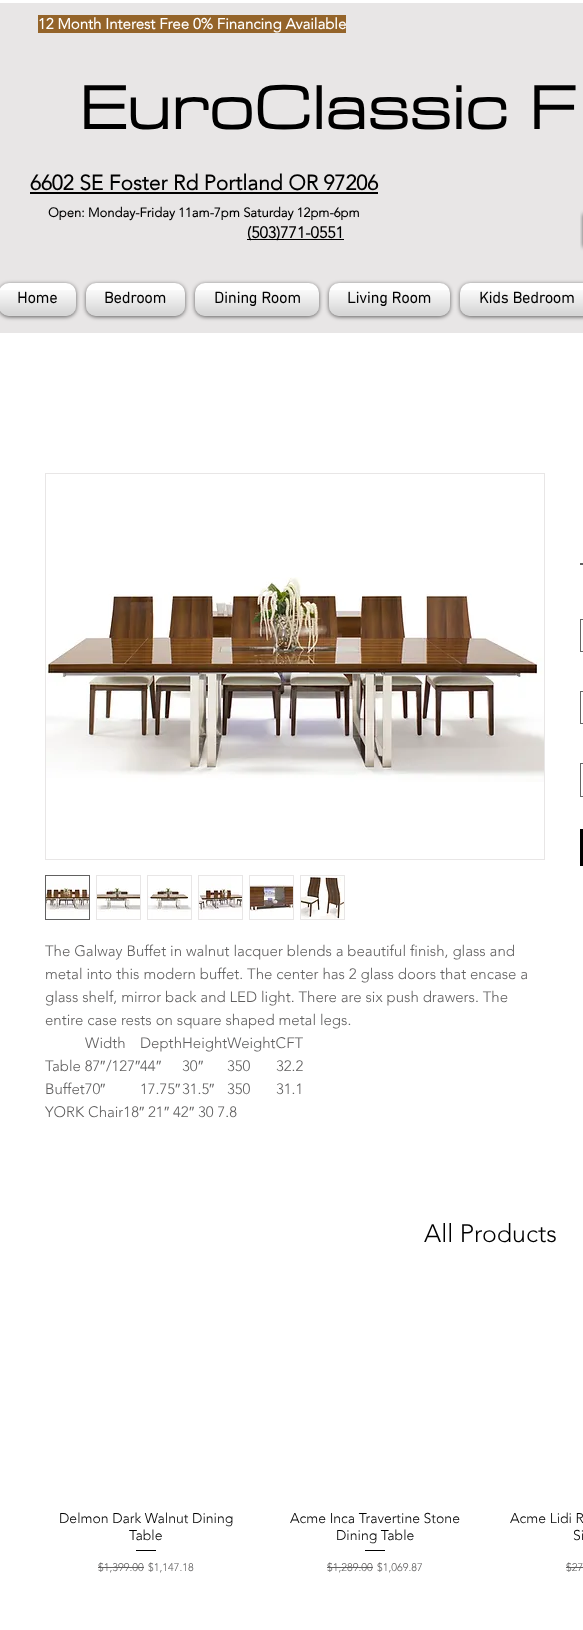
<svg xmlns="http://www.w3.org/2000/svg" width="583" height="1630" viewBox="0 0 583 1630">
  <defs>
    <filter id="blur1" x="-50%" y="-200%" width="200%" height="500%"><feGaussianBlur stdDeviation="2"/></filter>
  </defs>
  <rect width="100%" height="100%" fill="#ffffff"/>
  <rect x="0" y="3" width="583" height="330" fill="#e8e6e6"/>
  <rect x="38" y="15" width="308" height="18" fill="#94642a"/>
  <text x="38" y="29" font-family="'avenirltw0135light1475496'" font-size="15" font-weight="bold" fill="#ffffff">12 Month Interest Free 0% Financing Available</text>
  <text x="79" y="129" font-family="'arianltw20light'" font-size="74" font-weight="bold" fill="#000000">EuroClassic F</text>
  <text x="30" y="190" font-family="'avenirltw0135light1475496'" font-size="21" font-weight="bold" fill="#000000">6602 SE Foster Rd Portland OR 97206</text>
  <rect x="30" y="192" width="348" height="2" fill="#000000"/>
  <text x="48" y="217" font-family="'avenirltw0135light1475496'" font-size="13" font-weight="bold" fill="#000000">Open: Monday-Friday 11am-7pm Saturday 12pm-6pm</text>
  <rect x="583" y="214" width="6" height="33" fill="#000000" fill-opacity="0.6" filter="url(#blur1)"/>
  <rect x="247" y="239" width="97" height="1" fill="#000000"/>
  <text x="247" y="238" font-family="'avenirltw0135light1475496'" font-size="16" font-weight="bold" fill="#000000">(503)771-0551</text>
  <rect x="-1" y="284" width="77" height="33" rx="10" fill="#000000" fill-opacity="0.6" filter="url(#blur1)"/>
  <rect x="-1" y="283" width="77" height="33" rx="10" fill="#ffffff"/>
  <image x="0" y="290" width="76" height="26" href="img1.png"/>
  <text x="17" y="303" font-family="'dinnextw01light'" font-size="16" font-weight="bold" fill="#000000">Home</text>
  <rect x="86" y="284" width="99" height="33" rx="10" fill="#000000" fill-opacity="0.6" filter="url(#blur1)"/>
  <rect x="86" y="283" width="99" height="33" rx="10" fill="#ffffff"/>
  <image x="86" y="290" width="99" height="26" href="img2.png"/>
  <text x="104" y="303" font-family="'dinnextw01light'" font-size="16" font-weight="bold" fill="#000000">Bedroom</text>
  <rect x="195" y="284" width="124" height="33" rx="10" fill="#000000" fill-opacity="0.6" filter="url(#blur1)"/>
  <rect x="195" y="283" width="124" height="33" rx="10" fill="#ffffff"/>
  <image x="195" y="290" width="124" height="26" href="img3.png"/>
  <text x="214" y="303" font-family="'dinnextw01light'" font-size="16" font-weight="bold" fill="#000000">Dining Room</text>
  <rect x="329" y="284" width="121" height="33" rx="10" fill="#000000" fill-opacity="0.6" filter="url(#blur1)"/>
  <rect x="329" y="283" width="121" height="33" rx="10" fill="#ffffff"/>
  <image x="329" y="290" width="121" height="26" href="img4.png"/>
  <text x="347" y="303" font-family="'dinnextw01light'" font-size="16" font-weight="bold" fill="#000000">Living Room</text>
  <rect x="460" y="284" width="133" height="33" rx="10" fill="#000000" fill-opacity="0.6" filter="url(#blur1)"/>
  <rect x="460" y="283" width="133" height="33" rx="10" fill="#ffffff"/>
  <image x="460" y="290" width="123" height="26" href="img5.png"/>
  <text x="479" y="303" font-family="'dinnextw01light'" font-size="16" font-weight="bold" fill="#000000">Kids Bedroom</text>
  <rect x="580" y="563" width="3" height="2" fill="#616060"/>
  <rect x="580.5" y="619.5" width="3" height="32" fill="none" stroke="#666666"/>
  <rect x="580.5" y="691.5" width="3" height="32" fill="none" stroke="#666666"/>
  <rect x="580.5" y="763.5" width="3" height="33" fill="none" stroke="#666666"/>
  <rect x="580" y="829" width="3" height="37" fill="#000000"/>
  <rect x="45.5" y="473.5" width="499" height="386" fill="none" stroke="#e8e6e6"/>
  <image x="46" y="577" width="498" height="205" href="img6.png"/>
  <rect x="45.5" y="875.5" width="44" height="44" fill="none" stroke="#616060"/>
  <image x="46" y="876" width="43" height="43" href="img7.png"/>
  <rect x="96" y="875" width="45" height="45" fill="#e8e6e6"/>
  <image x="97" y="876" width="43" height="43" href="img8.png"/>
  <rect x="147" y="875" width="45" height="45" fill="#e8e6e6"/>
  <image x="148" y="876" width="43" height="43" href="img9.png"/>
  <rect x="198" y="875" width="45" height="45" fill="#e8e6e6"/>
  <image x="199" y="876" width="43" height="43" href="img10.png"/>
  <rect x="249" y="875" width="45" height="45" fill="#e8e6e6"/>
  <image x="250" y="876" width="43" height="43" href="img11.png"/>
  <rect x="300" y="875" width="45" height="45" fill="#e8e6e6"/>
  <image x="301" y="876" width="43" height="43" href="img12.png"/>
  <text x="45" y="956" font-family="'avenirltw0135light1475496'" font-size="15" font-weight="300" fill="#616060">The Galway Buffet in walnut lacquer blends a beautiful finish, glass and</text>
  <text x="45" y="979" font-family="'avenirltw0135light1475496'" font-size="15" font-weight="300" fill="#616060">metal into this modern buffet. The center has 2 glass doors that encase a</text>
  <text x="45" y="1002" font-family="'avenirltw0135light1475496'" font-size="15" font-weight="300" fill="#616060">glass shelf, mirror back and LED light. There are six push drawers. The</text>
  <text x="45" y="1025" font-family="'avenirltw0135light1475496'" font-size="15" font-weight="300" fill="#616060">entire case rests on square shaped metal legs.</text>
  <text x="85" y="1048" font-family="'avenirltw0135light1475496'" font-size="15" font-weight="300" fill="#616060">Width</text>
  <text x="140" y="1048" font-family="'avenirltw0135light1475496'" font-size="15" font-weight="300" fill="#616060">DepthHeightWeightCFT</text>
  <text x="45" y="1071" font-family="'avenirltw0135light1475496'" font-size="15" font-weight="300" fill="#616060">Table 87</text>
  <text x="100" y="1071" font-family="Liberation Sans" font-size="15" fill="#616060">″</text>
  <text x="106" y="1071" font-family="'avenirltw0135light1475496'" font-size="15" font-weight="300" fill="#616060">/127</text>
  <text x="135" y="1071" font-family="Liberation Sans" font-size="15" fill="#616060">″</text>
  <text x="140" y="1071" font-family="'avenirltw0135light1475496'" font-size="15" font-weight="300" fill="#616060">44</text>
  <text x="156" y="1071" font-family="Liberation Sans" font-size="15" fill="#616060">″</text>
  <text x="182" y="1071" font-family="'avenirltw0135light1475496'" font-size="15" font-weight="300" fill="#616060">30</text>
  <text x="198" y="1071" font-family="Liberation Sans" font-size="15" fill="#616060">″</text>
  <text x="227" y="1071" font-family="'avenirltw0135light1475496'" font-size="15" font-weight="300" fill="#616060">350</text>
  <text x="276" y="1071" font-family="'avenirltw0135light1475496'" font-size="15" font-weight="300" fill="#616060">32.2</text>
  <text x="45" y="1094" font-family="'avenirltw0135light1475496'" font-size="15" font-weight="300" fill="#616060">Buffet70</text>
  <text x="100" y="1094" font-family="Liberation Sans" font-size="15" fill="#616060">″</text>
  <text x="140" y="1094" font-family="'avenirltw0135light1475496'" font-size="15" font-weight="300" fill="#616060">17.75</text>
  <text x="175" y="1094" font-family="Liberation Sans" font-size="15" fill="#616060">″</text>
  <text x="182" y="1094" font-family="'avenirltw0135light1475496'" font-size="15" font-weight="300" fill="#616060">31.5</text>
  <text x="209" y="1094" font-family="Liberation Sans" font-size="15" fill="#616060">″</text>
  <text x="227" y="1094" font-family="'avenirltw0135light1475496'" font-size="15" font-weight="300" fill="#616060">350</text>
  <text x="276" y="1094" font-family="'avenirltw0135light1475496'" font-size="15" font-weight="300" fill="#616060">31.1</text>
  <text x="45" y="1117" font-family="'avenirltw0135light1475496'" font-size="15" font-weight="300" fill="#616060">YORK Chair18</text>
  <text x="139" y="1117" font-family="Liberation Sans" font-size="15" fill="#616060">″</text>
  <text x="148" y="1117" font-family="'avenirltw0135light1475496'" font-size="15" font-weight="300" fill="#616060">21</text>
  <text x="164" y="1117" font-family="Liberation Sans" font-size="15" fill="#616060">″</text>
  <text x="173" y="1117" font-family="'avenirltw0135light1475496'" font-size="15" font-weight="300" fill="#616060">42</text>
  <text x="189" y="1117" font-family="Liberation Sans" font-size="15" fill="#616060">″</text>
  <text x="198" y="1117" font-family="'avenirltw0135light1475496'" font-size="15" font-weight="300" fill="#616060">30 7.8</text>
  <text x="424" y="1242" font-family="'avenirltw0135light1475496'" font-size="25" font-weight="300" fill="#000000">All Products</text>
  <text x="59" y="1523" font-family="'avenirltw0135light1475496'" font-size="14" font-weight="300" fill="#000000">Delmon Dark Walnut Dining</text>
  <text x="129" y="1540" font-family="'avenirltw0135light1475496'" font-size="14" font-weight="300" fill="#000000">Table</text>
  <rect x="136" y="1550" width="20" height="1" fill="#000000"/>
  <text x="98" y="1571" font-family="'avenirltw0135light1475496'" font-size="11" font-weight="300" fill="#616060">$1,399.00</text>
  <rect x="98" y="1567" width="46" height="1" fill="#616060"/>
  <text x="148" y="1571" font-family="'avenirltw0135light1475496'" font-size="11" font-weight="300" fill="#616060">$1,147.18</text>
  <text x="290" y="1523" font-family="'avenirltw0135light1475496'" font-size="14" font-weight="300" fill="#000000">Acme Inca Travertine Stone</text>
  <text x="336" y="1540" font-family="'avenirltw0135light1475496'" font-size="14" font-weight="300" fill="#000000">Dining Table</text>
  <rect x="365" y="1550" width="20" height="1" fill="#000000"/>
  <text x="327" y="1571" font-family="'avenirltw0135light1475496'" font-size="11" font-weight="300" fill="#616060">$1,289.00</text>
  <rect x="327" y="1567" width="46" height="1" fill="#616060"/>
  <text x="377" y="1571" font-family="'avenirltw0135light1475496'" font-size="11" font-weight="300" fill="#616060">$1,069.87</text>
  <text x="510" y="1523" font-family="'avenirltw0135light1475496'" font-size="14" font-weight="300" fill="#000000">Acme Lidi R</text>
  <text x="573" y="1540" font-family="'avenirltw0135light1475496'" font-size="14" font-weight="300" fill="#000000">Si</text>
  <text x="566" y="1571" font-family="'avenirltw0135light1475496'" font-size="11" font-weight="300" fill="#616060">$27</text>
  <rect x="566" y="1567" width="17" height="1" fill="#616060"/>
</svg>
